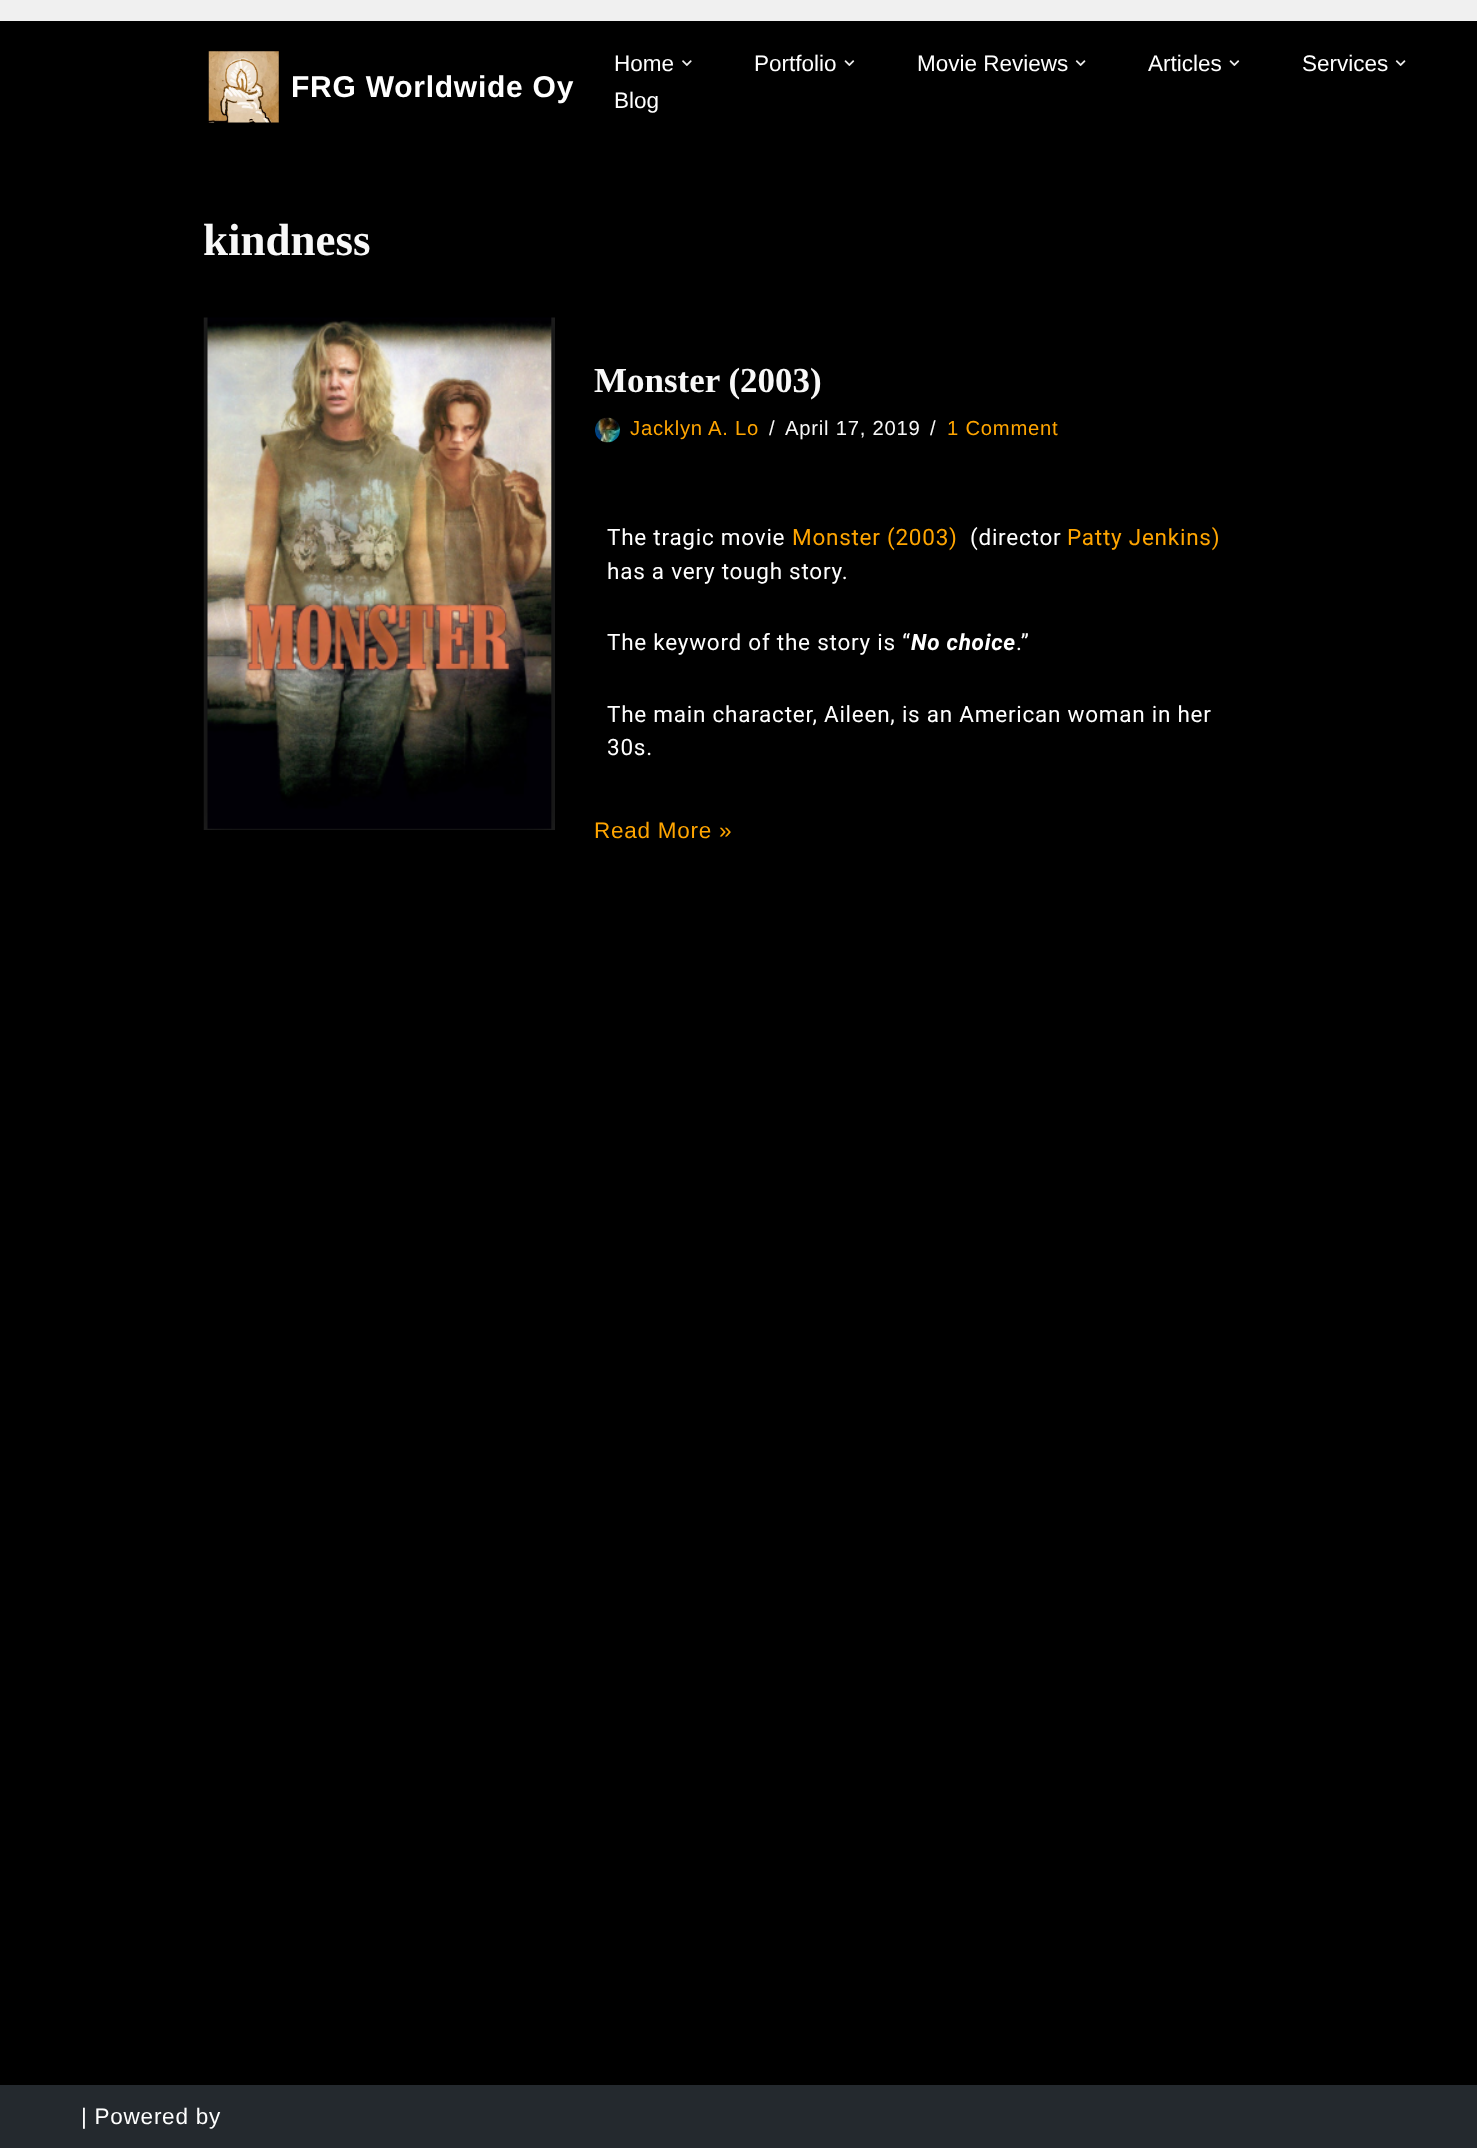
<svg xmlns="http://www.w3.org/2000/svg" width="1477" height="2148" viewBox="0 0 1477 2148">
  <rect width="100%" height="100%" fill="#000000"/>
  <rect x="0" y="0" width="1477" height="21" fill="#f0f0f0"/>
  <image x="208" y="51" width="71" height="72" href="img1.png"/>
  <text x="291" y="97" font-family="Liberation Sans" font-size="30" font-weight="bold" letter-spacing="0.75" fill="#ffffff">FRG Worldwide Oy</text>
  <text x="614" y="71" font-family="Liberation Sans" font-size="22.5" fill="#ffffff">Home</text>
  <image x="682" y="60" width="10" height="6" href="img2.png"/>
  <text x="754" y="71" font-family="Liberation Sans" font-size="22.5" fill="#ffffff">Portfolio</text>
  <image x="844" y="60" width="11" height="6" href="img3.png"/>
  <text x="917" y="71" font-family="Liberation Sans" font-size="22.5" fill="#ffffff">Movie Reviews</text>
  <image x="1075" y="60" width="11" height="6" href="img4.png"/>
  <text x="1148" y="71" font-family="Liberation Sans" font-size="22.5" fill="#ffffff">Articles</text>
  <image x="1229" y="60" width="11" height="6" href="img3.png"/>
  <text x="1302" y="71" font-family="Liberation Sans" font-size="22.5" fill="#ffffff">Services</text>
  <image x="1395" y="60" width="11" height="6" href="img4.png"/>
  <text x="614" y="108" font-family="Liberation Sans" font-size="22.5" fill="#ffffff">Blog</text>
  <text x="203" y="255" font-family="Liberation Serif" font-size="45" font-weight="bold" fill="#f8f8f8">kindness</text>
  <image x="203" y="317" width="352" height="513" href="img5.png"/>
  <text x="594" y="392" font-family="Liberation Serif" font-size="35" font-weight="bold" fill="#f8f8f8">Monster (2003)</text>
  <image x="595" y="417" width="25" height="26" href="img6.png"/>
  <text x="630" y="435" font-family="Liberation Sans" font-size="20.25" letter-spacing="0.75" fill="#ffa500">Jacklyn A. Lo</text>
  <text x="769" y="435" font-family="Liberation Sans" font-size="20.25" letter-spacing="0.75" fill="#f8f8f8">/</text>
  <text x="785" y="435" font-family="Liberation Sans" font-size="20.25" letter-spacing="0.75" fill="#f8f8f8">April 17, 2019</text>
  <text x="930" y="435" font-family="Liberation Sans" font-size="20.25" letter-spacing="0.75" fill="#f8f8f8">/</text>
  <text x="947" y="435" font-family="Liberation Sans" font-size="20.25" letter-spacing="0.75" fill="#ffa500">1 Comment</text>
  <text x="607" y="545" font-family="Roboto" font-size="22.5" letter-spacing="0.75" fill="#ffffff">The tragic movie</text>
  <text x="792" y="545" font-family="Roboto" font-size="22.5" letter-spacing="0.75" fill="#ffa500">Monster (2003)</text>
  <text x="970" y="545" font-family="Roboto" font-size="22.5" letter-spacing="0.75" fill="#ffffff">(director</text>
  <text x="1067" y="545" font-family="Roboto" font-size="22.5" letter-spacing="0.75" fill="#ffa500">Patty Jenkins)</text>
  <text x="607" y="579" font-family="Roboto" font-size="22.5" letter-spacing="0.75" fill="#ffffff">has a very tough story.</text>
  <text x="607" y="650" font-family="Roboto" font-size="22.5" letter-spacing="0.75" fill="#ffffff">The keyword of the story is “</text>
  <text x="911" y="650" font-family="Roboto" font-size="22.5" font-weight="bold" font-style="italic" letter-spacing="0.75" fill="#ffffff">No choice</text>
  <text x="1016" y="650" font-family="Roboto" font-size="22.5" letter-spacing="0.75" fill="#ffffff">.”</text>
  <text x="607" y="722" font-family="Roboto" font-size="22.5" letter-spacing="0.75" fill="#ffffff">The main character, Aileen, is an American woman in her</text>
  <text x="607" y="755" font-family="Roboto" font-size="22.5" letter-spacing="0.75" fill="#ffffff">30s.</text>
  <text x="594" y="838" font-family="Liberation Sans" font-size="22.5" letter-spacing="0.75" fill="#ffa500">Read More »</text>
  <rect x="0" y="2085" width="1477" height="63" fill="#24292e"/>
  <text x="81" y="2124" font-family="Liberation Sans" font-size="22.5" letter-spacing="0.75" fill="#ffffff">| Powered by</text>
</svg>
